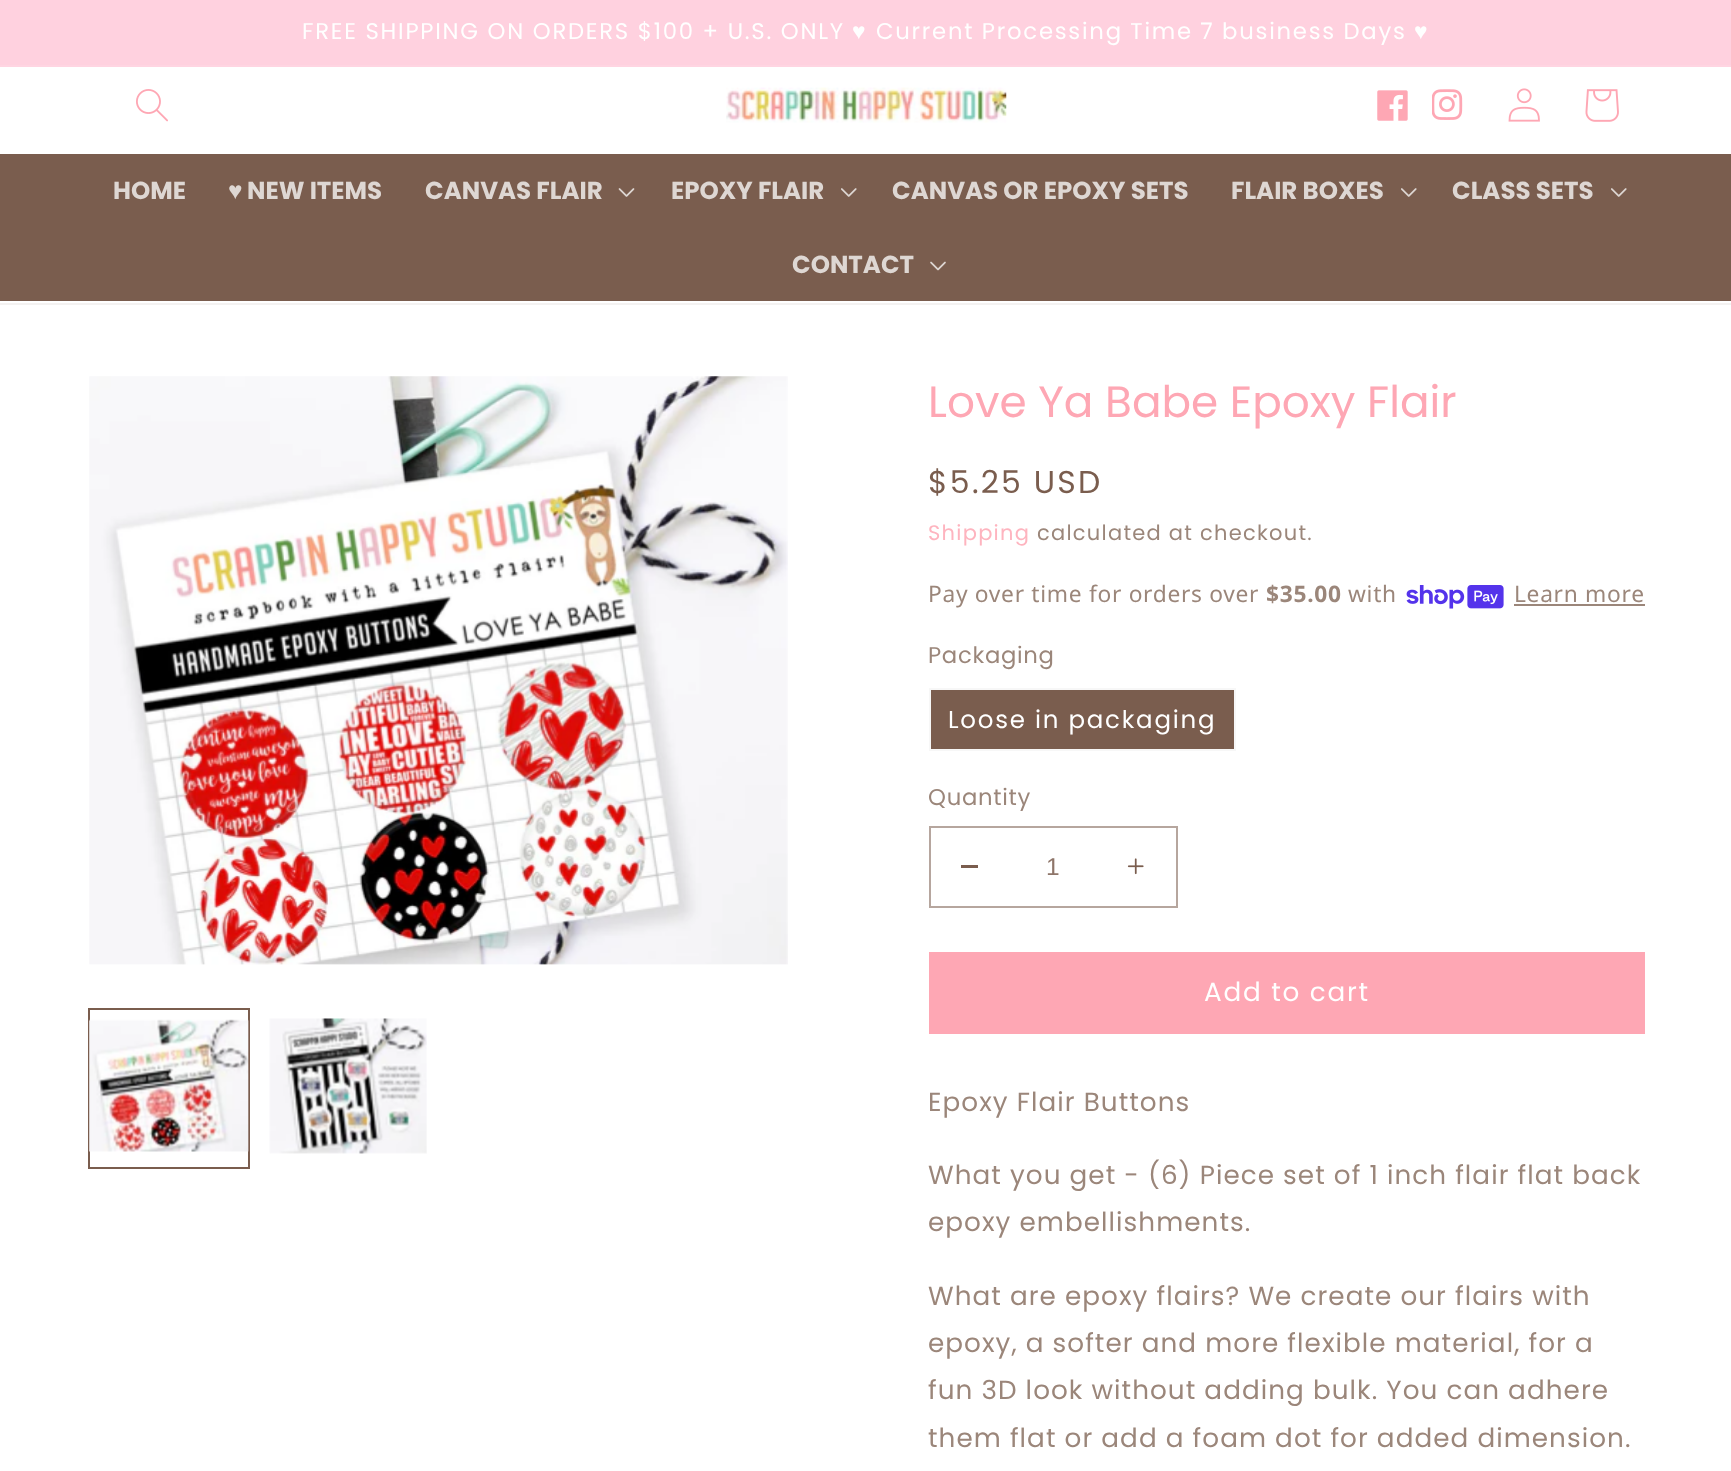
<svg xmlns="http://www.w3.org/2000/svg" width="1731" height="1471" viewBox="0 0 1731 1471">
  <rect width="100%" height="100%" fill="#ffffff"/>
  <rect x="0" y="0" width="1731" height="65" fill="#ffd1df"/>
  <rect x="0" y="65" width="1731" height="2" fill="#ffd5e2"/>
  <text x="302" y="39" font-family="Poppins" font-size="22.75" letter-spacing="1.75" fill="#ffffff">FREE SHIPPING ON ORDERS $100 + U.S. ONLY</text>
  <text x="852" y="39" font-family="Liberation Sans" font-size="22.75" letter-spacing="1.75" fill="#ffffff">♥︎</text>
  <text x="876" y="39" word-spacing="-0.25" font-family="Poppins" font-size="22.75" letter-spacing="1.75" fill="#ffffff">Current Processing Time 7 business Days</text>
  <text x="1414" y="39" font-family="Liberation Sans" font-size="22.75" letter-spacing="1.75" fill="#ffffff">♥︎</text>
  <rect x="0" y="303" width="1731" height="2" fill="#f4f2f1"/>
  <image x="136" y="89" width="32" height="33" href="img1.png"/>
  <image x="726" y="87" width="281" height="36" href="img2.png"/>
  <image x="1377" y="90" width="31" height="31" href="img3.png"/>
  <image x="1432" y="89" width="31" height="31" href="img4.png"/>
  <image x="1508" y="88" width="32" height="34" href="img5.png"/>
  <image x="1585" y="89" width="34" height="33" href="img6.png"/>
  <rect x="0" y="154" width="1731" height="147" fill="#7a5d4e"/>
  <text x="113" y="199" font-family="Poppins" font-size="24.5" font-weight="bold" fill="#ded7d3">HOME</text>
  <text x="228" y="199" font-family="Liberation Sans" font-size="24.5" font-weight="bold" fill="#ded7d3">♥︎</text>
  <text x="247" y="199" font-family="Poppins" font-size="24.5" font-weight="bold" fill="#ded7d3">NEW ITEMS</text>
  <text x="425" y="199" font-family="Poppins" font-size="24.5" font-weight="bold" fill="#ded7d3">CANVAS FLAIR</text>
  <image x="618" y="188" width="17" height="9" href="img7.png"/>
  <text x="671" y="199" font-family="Poppins" font-size="24.5" font-weight="bold" fill="#ded7d3">EPOXY FLAIR</text>
  <image x="841" y="188" width="16" height="9" href="img8.png"/>
  <text x="892" y="199" font-family="Poppins" font-size="24.5" font-weight="bold" fill="#ded7d3">CANVAS OR EPOXY SETS</text>
  <text x="1231" y="199" font-family="Poppins" font-size="24.5" font-weight="bold" fill="#ded7d3">FLAIR BOXES</text>
  <image x="1401" y="188" width="16" height="9" href="img8.png"/>
  <text x="1452" y="199" font-family="Poppins" font-size="24.5" font-weight="bold" fill="#ded7d3">CLASS SETS</text>
  <image x="1611" y="188" width="16" height="9" href="img8.png"/>
  <text x="792" y="273" font-family="Poppins" font-size="24.5" font-weight="bold" fill="#ded7d3">CONTACT</text>
  <image x="930" y="261" width="16" height="10" href="img9.png"/>
  <image x="89" y="376" width="699" height="589" href="img10.png"/>
  <rect x="89" y="1009" width="160" height="159" fill="none" stroke="#7a5d4e" stroke-width="2"/>
  <image x="89" y="1019" width="160" height="133" href="img11.png"/>
  <image x="269" y="1018" width="158" height="136" href="img12.png"/>
  <text x="928" y="417" font-family="Poppins" font-size="43.75" fill="#fea7b4">Love Ya Babe Epoxy Flair</text>
  <text x="928" y="493" font-family="Poppins" font-size="31.5" letter-spacing="2.25" fill="#7a5d4e">$5.25 USD</text>
  <text x="928" y="540" font-family="Poppins" font-size="21" letter-spacing="1.25" fill="#feb4bf">Shipping</text>
  <text x="1037" y="540" font-family="Poppins" font-size="21" letter-spacing="1.25" fill="#9b867a">calculated at checkout.</text>
  <text x="928" y="602" font-family="Noto Sans" font-size="22.75" letter-spacing="0.7" fill="#9b867a">Pay over time for orders over</text>
  <text x="1266" y="602" font-family="Noto Sans" font-size="22.75" font-weight="bold" letter-spacing="0.7" fill="#9b867a">$35.00</text>
  <text x="1348" y="602" font-family="Noto Sans" font-size="22.75" letter-spacing="0.7" fill="#9b867a">with</text>
  <image x="1406" y="585" width="98" height="24" href="img13.png"/>
  <text x="1514" y="602" font-family="Noto Sans" font-size="22.75" letter-spacing="0.7" fill="#9b867a">Learn more</text>
  <rect x="1514" y="604" width="131" height="2" fill="#9b867a"/>
  <text x="928" y="663" font-family="Poppins" font-size="22.75" letter-spacing="0.7" fill="#9b867a">Packaging</text>
  <rect x="930" y="689" width="305" height="61" fill="#7a5d4e" stroke="#f7f7f7" stroke-width="2"/>
  <text x="948" y="728" font-family="Poppins" font-size="24.5" letter-spacing="1.75" fill="#ffffff">Loose in packaging</text>
  <text x="928" y="805" font-family="Poppins" font-size="22.75" letter-spacing="0.7" fill="#9b867a">Quantity</text>
  <rect x="961" y="865" width="17" height="3" fill="#7a5d4e"/>
  <image x="1127" y="858" width="17" height="17" href="img14.png"/>
  <rect x="930" y="827" width="247" height="80" fill="none" stroke="#b6a69e" stroke-width="2"/>
  <text x="1046" y="875" font-family="Liberation Sans" font-size="24.5" fill="#8e7569">1</text>
  <rect x="929" y="952" width="716" height="82" fill="#fea7b4"/>
  <text x="1204" y="1001" font-family="Poppins" font-size="26.25" letter-spacing="1.75" fill="#ffffff">Add to cart</text>
  <text x="928" y="1111" font-family="Poppins" font-size="26.25" letter-spacing="1.05" fill="#9b867a">Epoxy Flair Buttons</text>
  <text x="928" y="1184" font-family="Poppins" font-size="26.25" letter-spacing="1.05" fill="#9b867a">What you get - (6) Piece set of 1 inch flair flat back</text>
  <text x="928" y="1231" font-family="Poppins" font-size="26.25" letter-spacing="1.05" fill="#9b867a">epoxy embellishments.</text>
  <text x="928" y="1305" font-family="Poppins" font-size="26.25" letter-spacing="1.05" fill="#9b867a">What are epoxy flairs? We create our flairs with</text>
  <text x="928" y="1352" font-family="Poppins" font-size="26.25" letter-spacing="1.05" fill="#9b867a">epoxy, a softer and more flexible material, for a</text>
  <text x="928" y="1399" font-family="Poppins" font-size="26.25" letter-spacing="1.05" fill="#9b867a">fun 3D look without adding bulk. You can adhere</text>
  <text x="928" y="1447" font-family="Poppins" font-size="26.25" letter-spacing="1.05" fill="#9b867a">them flat or add a foam dot for added dimension.</text>
</svg>
